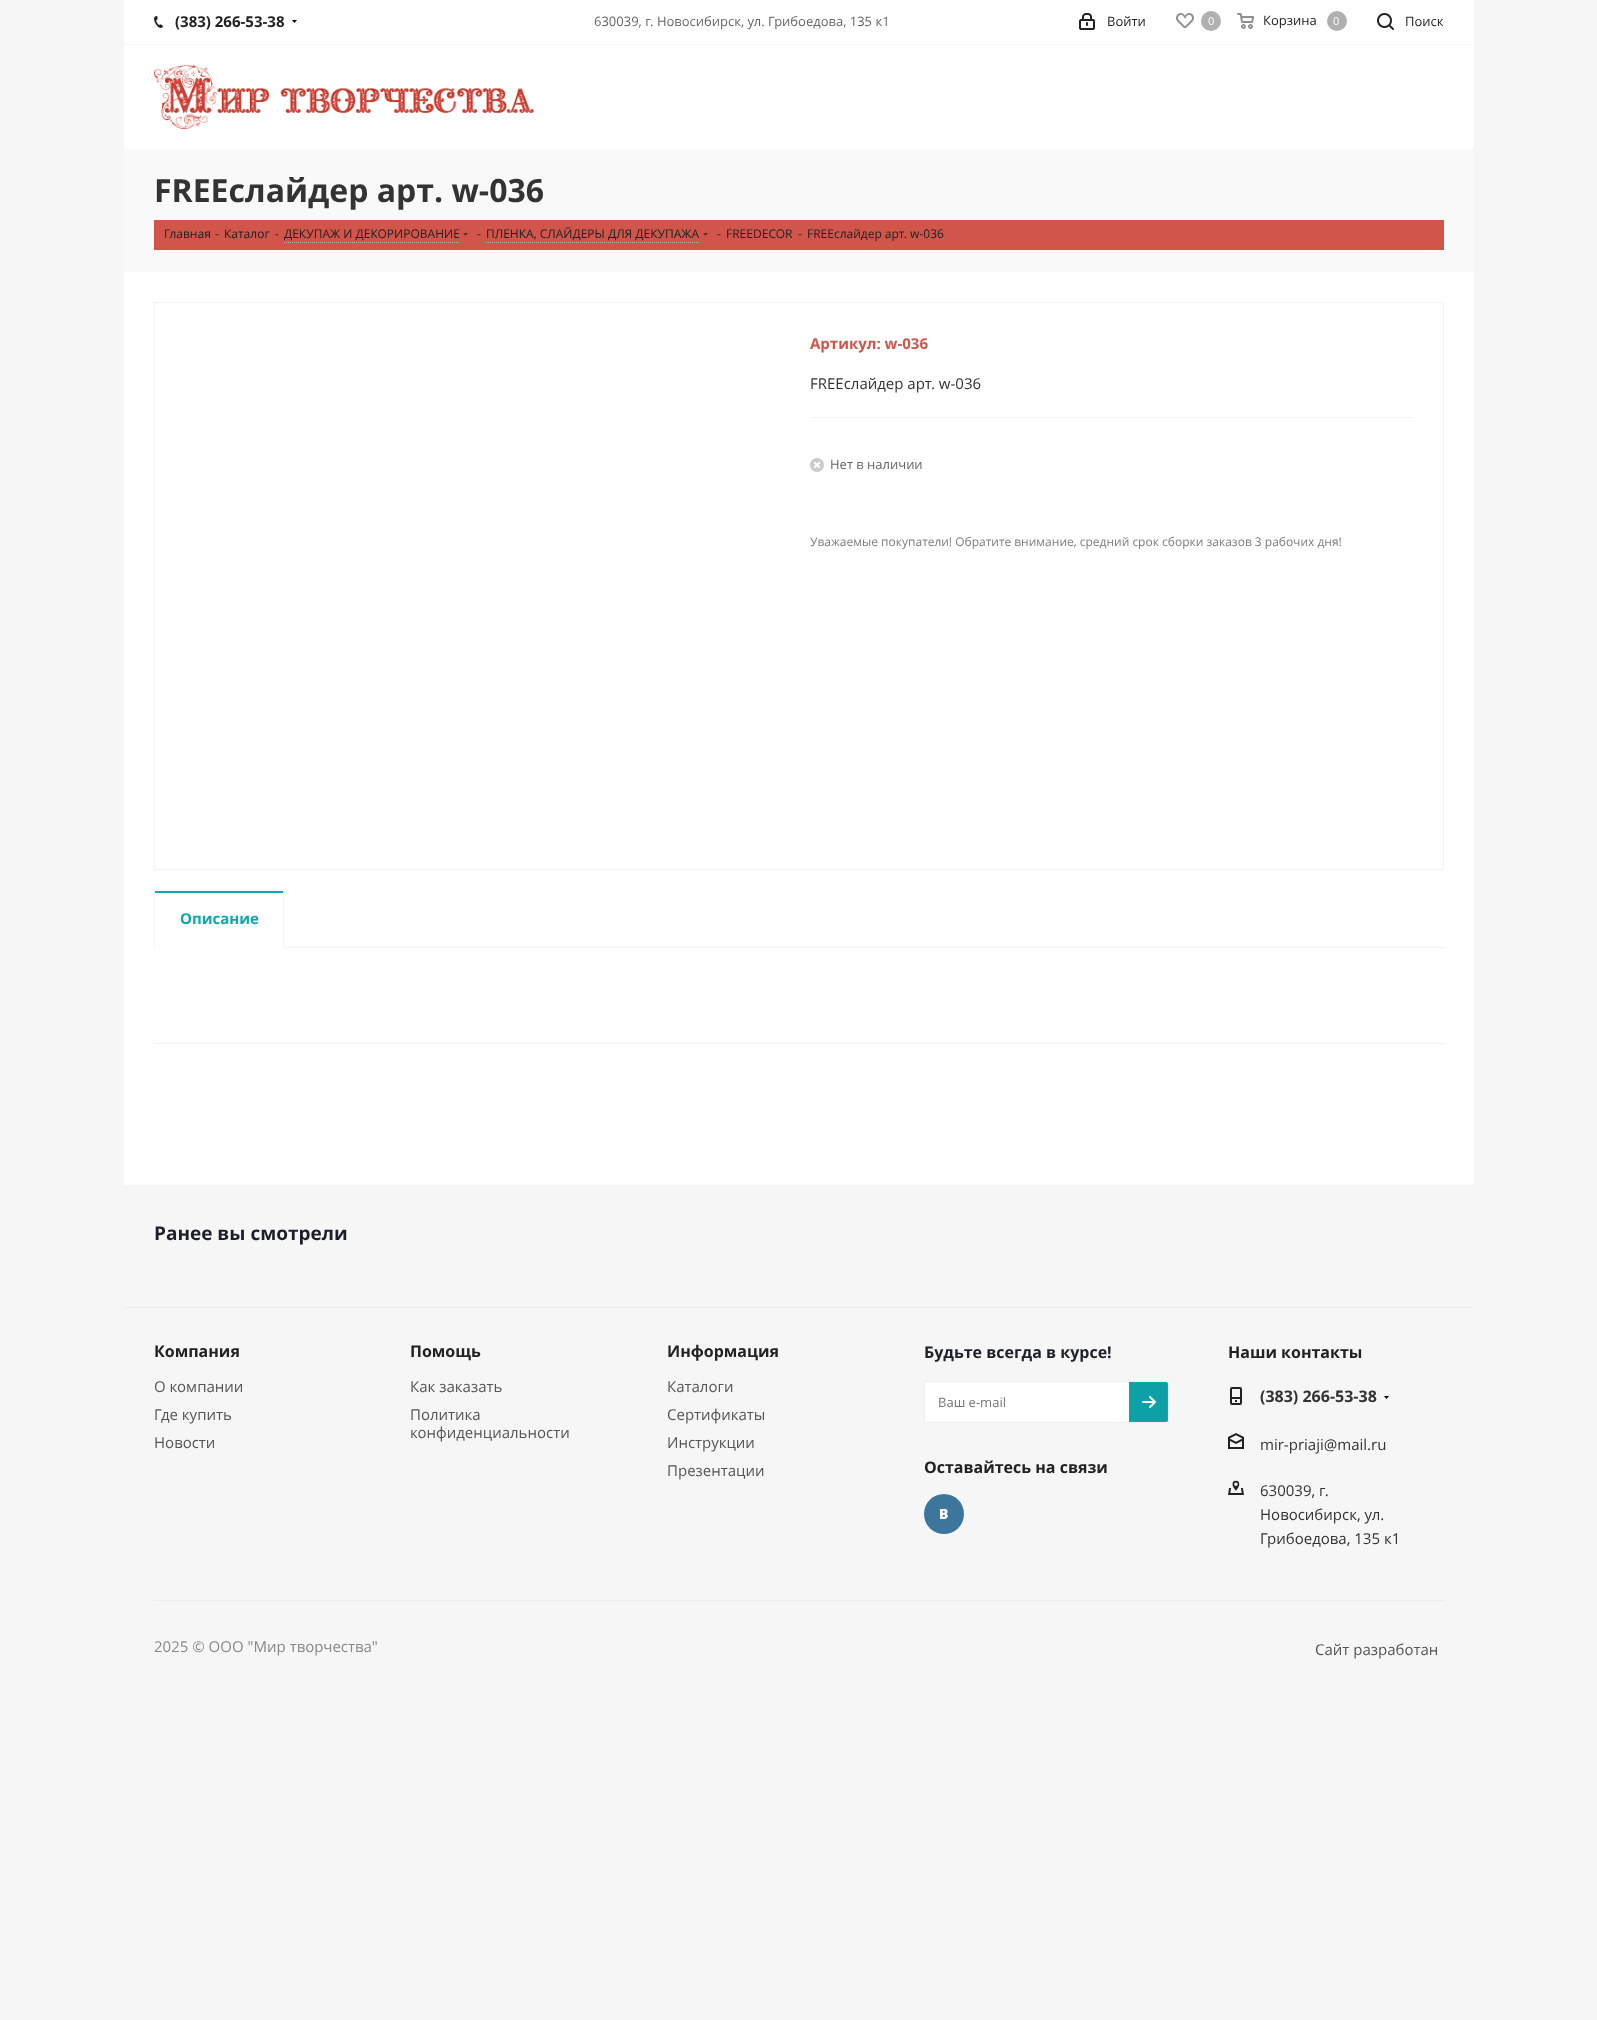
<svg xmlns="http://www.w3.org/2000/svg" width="1597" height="2020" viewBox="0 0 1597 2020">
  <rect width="100%" height="100%" fill="#f6f6f7"/>
  <rect x="124" y="0" width="1350" height="44" fill="#ffffff"/>
  <image x="154" y="16" width="9" height="12" href="img1.png"/>
  <text x="175" y="27" font-family="Open Sans" font-size="15" font-weight="bold" fill="#222222">(383) 266-53-38</text>
  <image x="292" y="20" width="5" height="3" href="img2.png"/>
  <text x="594" y="26" font-family="Open Sans" font-size="13" fill="#666666">630039, г. Новосибирск, ул. Грибоедова, 135 к1</text>
  <image x="1079" y="13" width="16" height="17" href="img3.png"/>
  <text x="1107" y="26" font-family="Open Sans" font-size="13" fill="#222222">Войти</text>
  <image x="1176" y="13" width="18" height="15" href="img4.png"/>
  <circle cx="1211" cy="21" r="10" fill="#b0b0b0"/>
  <text x="1208" y="25" font-family="Open Sans" font-size="11" fill="#ffffff">0</text>
  <image x="1237" y="13" width="17" height="16" href="img5.png"/>
  <text x="1263" y="25" font-family="Open Sans" font-size="13" fill="#222222">Корзина</text>
  <circle cx="1337" cy="21" r="10" fill="#b0b0b0"/>
  <text x="1333" y="25" font-family="Open Sans" font-size="11" fill="#ffffff">0</text>
  <image x="1377" y="13" width="17" height="17" href="img6.png"/>
  <text x="1405" y="26" font-family="Open Sans" font-size="13" fill="#222222">Поиск</text>
  <rect x="124" y="45" width="1350" height="104" fill="#ffffff"/>
  <image x="154" y="65" width="380" height="64" href="img7.png"/>
  <rect x="124" y="272" width="1350" height="913" fill="#ffffff"/>
  <rect x="124" y="149" width="1350" height="123" fill="#f9f9f9"/>
  <text x="154" y="202" font-family="Open Sans" font-size="32" font-weight="bold" fill="#333333">FREEслайдер арт. w-036</text>
  <rect x="154" y="220" width="1290" height="30" fill="#d1554a"/>
  <text x="164" y="238" font-family="Open Sans" font-size="12" fill="#222222">Главная</text>
  <text x="215" y="238" font-family="Open Sans" font-size="12" fill="#222222">-</text>
  <text x="224" y="238" font-family="Open Sans" font-size="12" fill="#222222">Каталог</text>
  <text x="275" y="238" font-family="Open Sans" font-size="12" fill="#222222">-</text>
  <text x="284" y="238" font-family="Open Sans" font-size="12" fill="#222222">ДЕКУПАЖ И ДЕКОРИРОВАНИЕ</text>
  <path d="M284 242.5H459" fill="none" stroke="#b4b4b4" stroke-dasharray="1 1"/>
  <image x="463" y="233" width="5" height="3" href="img8.png"/>
  <text x="477" y="238" font-family="Open Sans" font-size="12" fill="#222222">-</text>
  <text x="486" y="238" font-family="Open Sans" font-size="12" fill="#222222">ПЛЕНКА, СЛАЙДЕРЫ ДЛЯ ДЕКУПАЖА</text>
  <path d="M486 242.5H699" fill="none" stroke="#b4b4b4" stroke-dasharray="1 1"/>
  <image x="703" y="233" width="5" height="3" href="img8.png"/>
  <text x="717" y="238" font-family="Open Sans" font-size="12" fill="#222222">-</text>
  <text x="726" y="238" font-family="Open Sans" font-size="12" fill="#222222">FREEDECOR</text>
  <text x="798" y="238" font-family="Open Sans" font-size="12" fill="#222222">-</text>
  <text x="807" y="238" font-family="Open Sans" font-size="12" fill="#222222">FREEслайдер арт. w-036</text>
  <rect x="154.5" y="302.5" width="1289" height="567" fill="none" stroke="#f2f2f2"/>
  <rect x="810" y="417" width="603" height="1" fill="#f2f2f2"/>
  <text x="810" y="349" font-family="Open Sans" font-size="15" font-weight="bold" fill="#d1554a">Артикул: w-036</text>
  <text x="810" y="389" font-family="Open Sans" font-size="15" fill="#333333">FREEслайдер арт. w-036</text>
  <image x="810" y="458" width="14" height="14" href="img9.png"/>
  <text x="830" y="469" font-family="Open Sans" font-size="13" fill="#666666">Нет в наличии</text>
  <text x="810" y="546" font-family="Open Sans" font-size="12" fill="#7d7d7d">Уважаемые покупатели! Обратите внимание, средний срок сборки заказов 3 рабочих дня!</text>
  <rect x="284" y="947" width="1160" height="1" fill="#f2f2f2"/>
  <rect x="154" y="890" width="130" height="1" fill="#f5f5f5"/>
  <rect x="283" y="890" width="1" height="58" fill="#f5f5f5"/>
  <rect x="283" y="947" width="1" height="1" fill="#ffffff"/>
  <rect x="154" y="890" width="1" height="58" fill="#f5f5f5"/>
  <rect x="155" y="891" width="128" height="2" fill="#0fa8ae"/>
  <text x="180" y="924" font-family="Open Sans" font-size="15" font-weight="bold" fill="#0fa8ae">Описание</text>
  <rect x="154" y="1043" width="1290" height="1" fill="#f2f2f2"/>
  <rect x="124" y="1307" width="1350" height="1" fill="#eeeeee"/>
  <text x="154" y="1240" font-family="Open Sans" font-size="19" font-weight="bold" fill="#1d2029">Ранее вы смотрели</text>
  <text x="154" y="1357" font-family="Open Sans" font-size="16" font-weight="bold" fill="#222222">Компания</text>
  <text x="154" y="1392" font-family="Open Sans" font-size="15" fill="#555555">О компании</text>
  <text x="154" y="1420" font-family="Open Sans" font-size="15" fill="#555555">Где купить</text>
  <text x="154" y="1448" font-family="Open Sans" font-size="15" fill="#555555">Новости</text>
  <text x="410" y="1357" font-family="Open Sans" font-size="16" font-weight="bold" fill="#222222">Помощь</text>
  <text x="410" y="1392" font-family="Open Sans" font-size="15" fill="#555555">Как заказать</text>
  <text x="410" y="1420" font-family="Open Sans" font-size="15" fill="#555555">Политика</text>
  <text x="410" y="1438" font-family="Open Sans" font-size="15" fill="#555555">конфиденциальности</text>
  <text x="667" y="1357" font-family="Open Sans" font-size="16" font-weight="bold" fill="#222222">Информация</text>
  <text x="667" y="1392" font-family="Open Sans" font-size="15" fill="#555555">Каталоги</text>
  <text x="667" y="1420" font-family="Open Sans" font-size="15" fill="#555555">Сертификаты</text>
  <text x="667" y="1448" font-family="Open Sans" font-size="15" fill="#555555">Инструкции</text>
  <text x="667" y="1476" font-family="Open Sans" font-size="15" fill="#555555">Презентации</text>
  <text x="924" y="1358" font-family="Open Sans" font-size="16" font-weight="bold" fill="#1d2029">Будьте всегда в курсе!</text>
  <rect x="924.5" y="1381.5" width="244" height="41" rx="1.5" fill="#ffffff" stroke="#eeeeee"/>
  <text x="938" y="1407" font-family="Open Sans" font-size="13" fill="#757575">Ваш e-mail</text>
  <path d="M1129 1382H1166C1167 1382 1168 1383 1168 1384V1420C1168 1421 1167 1422 1166 1422H1129Z" fill="#0da0a6"/>
  <image x="1142" y="1396" width="14" height="12" href="img10.png"/>
  <path d="M1129.5 1382.5H1166C1167 1382.5 1167.5 1383 1167.5 1384V1420C1167.5 1421 1167 1421.5 1166 1421.5H1129.5Z" fill="none" stroke="#0fa8ae"/>
  <text x="924" y="1473" font-family="Open Sans" font-size="16" font-weight="bold" fill="#222222">Оставайтесь на связи</text>
  <image x="924" y="1494" width="40" height="40" href="img11.png"/>
  <text x="1228" y="1358" font-family="Open Sans" font-size="16" font-weight="bold" fill="#222222">Наши контакты</text>
  <image x="1230" y="1387" width="12" height="18" href="img12.png"/>
  <text x="1260" y="1402" font-family="Open Sans" font-size="16" font-weight="bold" fill="#333333">(383) 266-53-38</text>
  <image x="1384" y="1396" width="5" height="3" href="img13.png"/>
  <image x="1228" y="1433" width="16" height="16" href="img14.png"/>
  <text x="1260" y="1450" font-family="Open Sans" font-size="15" fill="#333333">mir-priaji@mail.ru</text>
  <image x="1228" y="1480" width="16" height="15" href="img15.png"/>
  <text x="1260" y="1496" font-family="Open Sans" font-size="15" fill="#333333">630039, г.</text>
  <text x="1260" y="1520" font-family="Open Sans" font-size="15" fill="#333333">Новосибирск, ул.</text>
  <text x="1260" y="1544" font-family="Open Sans" font-size="15" fill="#333333">Грибоедова, 135 к1</text>
  <rect x="154" y="1600" width="1290" height="1" fill="#eeeeee"/>
  <text x="154" y="1652" font-family="Open Sans" font-size="15" fill="#888888">2025 © ООО "Мир творчества"</text>
  <text x="1315" y="1655" font-family="Open Sans" font-size="15" fill="#555555">Сайт разработан</text>
</svg>
